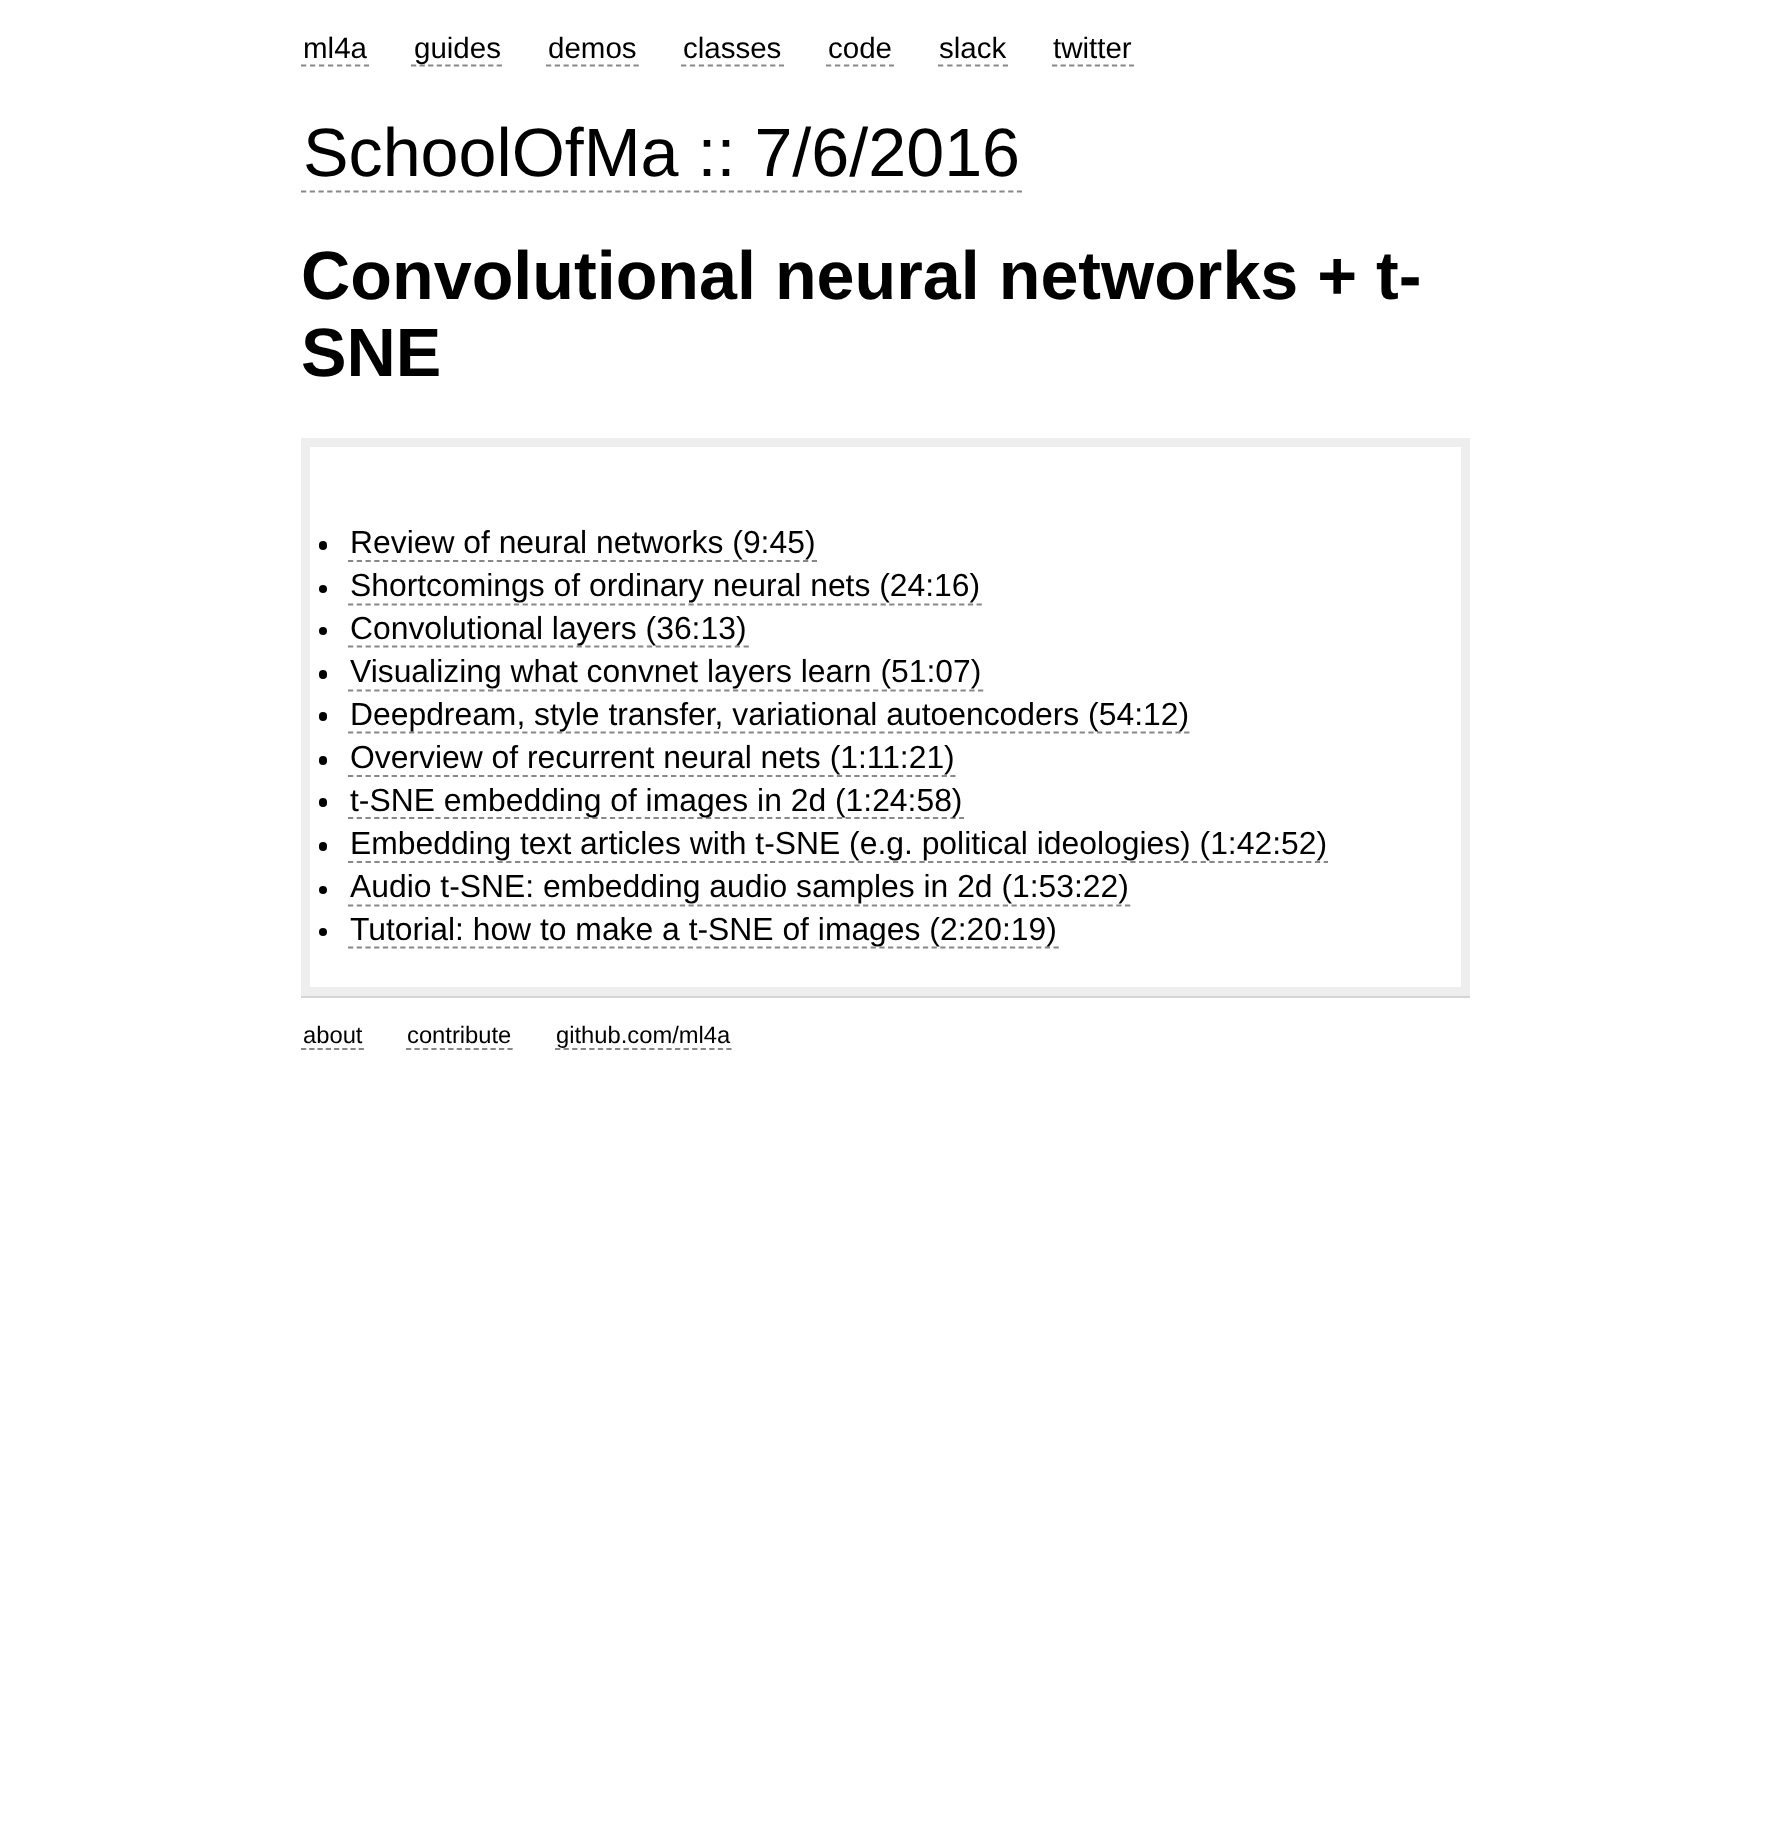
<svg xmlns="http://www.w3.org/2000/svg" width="1770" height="1825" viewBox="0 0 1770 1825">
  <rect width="100%" height="100%" fill="#ffffff"/>
  <text x="303" y="58" font-family="Liberation Sans" font-size="29.5" fill="#000000">ml4a</text>
  <path d="M301 65.5H369" fill="none" stroke="#888888" stroke-width="1.8" stroke-dasharray="5.25 3.75"/>
  <path d="M411 65.5H502" fill="none" stroke="#888888" stroke-width="1.8" stroke-dasharray="5.25 3.32"/>
  <text x="414" y="58" font-family="Liberation Sans" font-size="29.5" fill="#000000">guides</text>
  <text x="548" y="58" font-family="Liberation Sans" font-size="29.5" fill="#000000">demos</text>
  <path d="M546 65.5H639" fill="none" stroke="#888888" stroke-width="1.8" stroke-dasharray="5.25 3.5"/>
  <text x="683" y="58" font-family="Liberation Sans" font-size="29.5" fill="#000000">classes</text>
  <path d="M681 65.5H784" fill="none" stroke="#888888" stroke-width="1.8" stroke-dasharray="5.25 3.66"/>
  <text x="828" y="58" font-family="Liberation Sans" font-size="29.5" fill="#000000">code</text>
  <path d="M826 65.5H894" fill="none" stroke="#888888" stroke-width="1.8" stroke-dasharray="5.25 3.75"/>
  <text x="939" y="58" font-family="Liberation Sans" font-size="29.5" fill="#000000">slack</text>
  <path d="M938 65.5H1008" fill="none" stroke="#888888" stroke-width="1.8" stroke-dasharray="5.25 4.01"/>
  <text x="1053" y="58" font-family="Liberation Sans" font-size="29.5" fill="#000000">twitter</text>
  <path d="M1052 65.5H1134" fill="none" stroke="#888888" stroke-width="1.8" stroke-dasharray="5.25 3.31"/>
  <text x="303" y="176" font-family="Liberation Sans" font-size="68.25" fill="#000000">SchoolOfMa :: 7/6/2016</text>
  <path d="M301 191.5H1022" fill="none" stroke="#888888" stroke-width="1.8" stroke-dasharray="5.25 3.48"/>
  <text x="301" y="299" font-family="Liberation Sans" font-size="68.25" font-weight="bold" fill="#000000">Convolutional neural networks + t-</text>
  <text x="301" y="376" font-family="Liberation Sans" font-size="68.25" font-weight="bold" fill="#000000">SNE</text>
  <rect x="305.5" y="442.5" width="1160" height="549" fill="none" stroke="#eeeeee" stroke-width="9"/>
  <rect x="319" y="541" width="8" height="9" rx="4" fill="#000000"/>
  <text x="350" y="553" font-family="Liberation Sans" font-size="31.85" fill="#000000">Review of neural networks (9:45)</text>
  <path d="M348 561H817" fill="none" stroke="#888888" stroke-width="1.8" stroke-dasharray="5.25 3.5"/>
  <circle cx="323" cy="589" r="4" fill="#000000"/>
  <text x="350" y="596" font-family="Liberation Sans" font-size="31.85" fill="#000000">Shortcomings of ordinary neural nets (24:16)</text>
  <path d="M348 604.5H982" fill="none" stroke="#888888" stroke-width="1.8" stroke-dasharray="5.25 3.48"/>
  <circle cx="323" cy="631" r="4" fill="#000000"/>
  <path d="M348 646.5H749" fill="none" stroke="#888888" stroke-width="1.8" stroke-dasharray="5.25 3.54"/>
  <text x="350" y="639" font-family="Liberation Sans" font-size="31.85" fill="#000000">Convolutional layers (36:13)</text>
  <rect x="319" y="670" width="8" height="9" rx="4" fill="#000000"/>
  <text x="350" y="682" font-family="Liberation Sans" font-size="31.85" fill="#000000">Visualizing what convnet layers learn (51:07)</text>
  <path d="M348 690.5H983.5" fill="none" stroke="#888888" stroke-width="1.8" stroke-dasharray="5.25 3.5"/>
  <rect x="319" y="712" width="8" height="9" rx="4" fill="#000000"/>
  <path d="M348 732.5H1190" fill="none" stroke="#888888" stroke-width="1.8" stroke-dasharray="5.25 3.46"/>
  <text x="350" y="725" font-family="Liberation Sans" font-size="31.85" fill="#000000">Deepdream, style transfer, variational autoencoders (54:12)</text>
  <rect x="319" y="756" width="8" height="9" rx="4" fill="#000000"/>
  <text x="350" y="768" font-family="Liberation Sans" font-size="31.85" fill="#000000">Overview of recurrent neural nets (1:11:21)</text>
  <path d="M348 776H955.5" fill="none" stroke="#888888" stroke-width="1.8" stroke-dasharray="5.25 3.48"/>
  <rect x="319" y="798" width="8" height="9" rx="4" fill="#000000"/>
  <path d="M348 818H964" fill="none" stroke="#888888" stroke-width="1.8" stroke-dasharray="5.25 3.48"/>
  <text x="350" y="811" font-family="Liberation Sans" font-size="31.85" fill="#000000">t-SNE embedding of images in 2d (1:24:58)</text>
  <rect x="319" y="842" width="8" height="9" rx="4" fill="#000000"/>
  <text x="350" y="854" font-family="Liberation Sans" font-size="31.85" fill="#000000">Embedding text articles with t-SNE (e.g. political ideologies) (1:42:52)</text>
  <path d="M348 862H1328" fill="none" stroke="#888888" stroke-width="1.8" stroke-dasharray="5.25 3.54"/>
  <circle cx="323" cy="890" r="4" fill="#000000"/>
  <text x="350" y="897" font-family="Liberation Sans" font-size="31.85" fill="#000000">Audio t-SNE: embedding audio samples in 2d (1:53:22)</text>
  <path d="M348 905.5H1130.5" fill="none" stroke="#888888" stroke-width="1.8" stroke-dasharray="5.25 3.48"/>
  <circle cx="323" cy="932" r="4" fill="#000000"/>
  <path d="M348 947.5H1059" fill="none" stroke="#888888" stroke-width="1.8" stroke-dasharray="5.25 3.46"/>
  <text x="350" y="940" font-family="Liberation Sans" font-size="31.85" fill="#000000">Tutorial: how to make a t-SNE of images (2:20:19)</text>
  <rect x="301" y="996" width="1169" height="2" fill="#d5d5d5"/>
  <text x="303" y="1043" font-family="Liberation Sans" font-size="23.75" fill="#000000">about</text>
  <path d="M301 1049H364" fill="none" stroke="#888888" stroke-width="1.8" stroke-dasharray="5.25 2.99"/>
  <text x="407" y="1043" font-family="Liberation Sans" font-size="23.75" fill="#000000">contribute</text>
  <path d="M406 1049H513" fill="none" stroke="#888888" stroke-width="1.8" stroke-dasharray="5.25 3.2"/>
  <text x="556" y="1043" font-family="Liberation Sans" font-size="23.75" fill="#000000">github.com/ml4a</text>
  <path d="M555 1049H731.5" fill="none" stroke="#888888" stroke-width="1.8" stroke-dasharray="5.25 3.32"/>
</svg>
